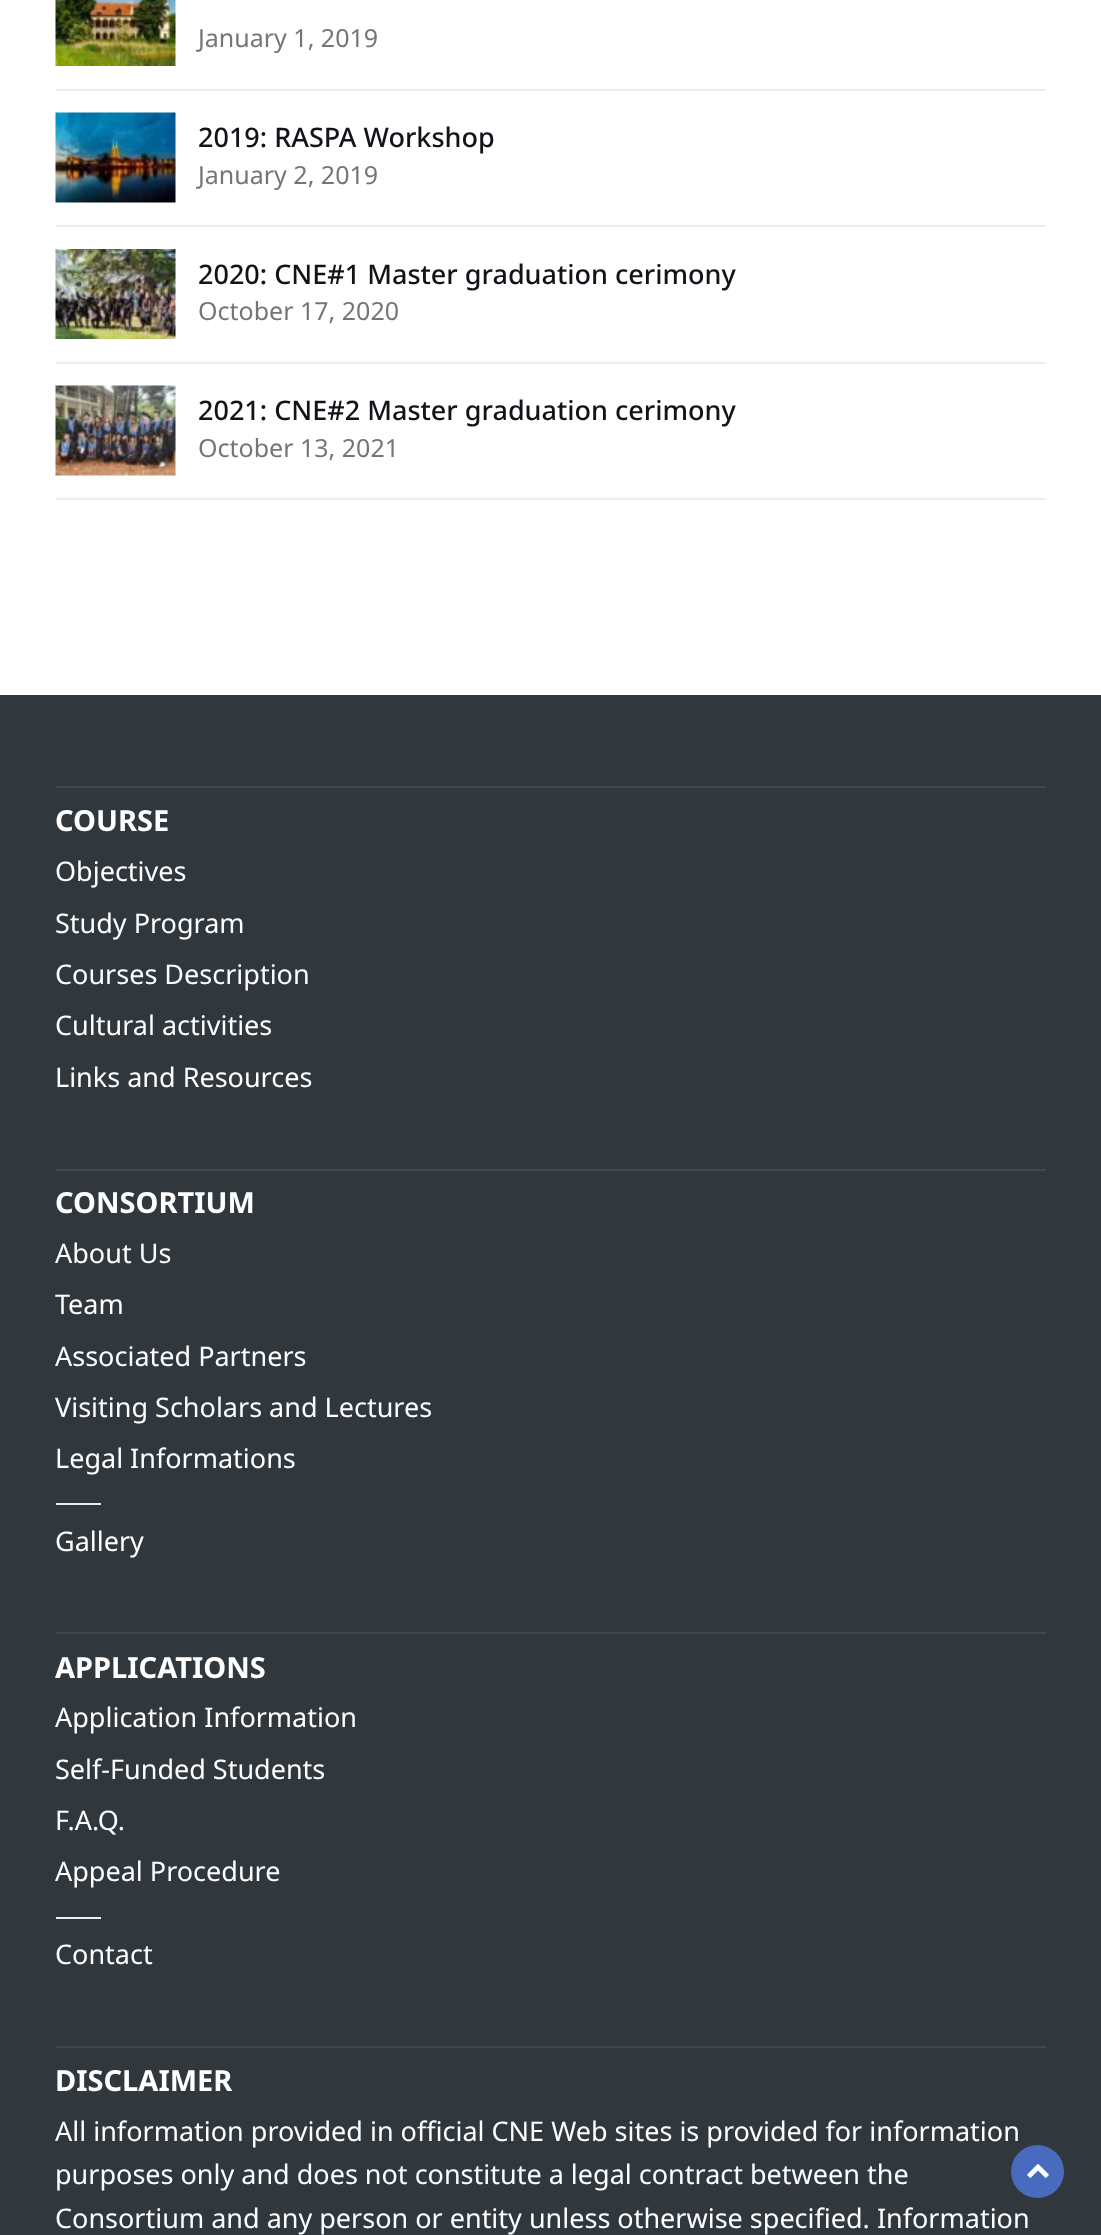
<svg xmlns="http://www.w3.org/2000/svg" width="1101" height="2235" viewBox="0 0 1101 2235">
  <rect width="100%" height="100%" fill="#ffffff"/>
  <rect x="56" y="89" width="990" height="2" fill="#eeeeee"/>
  <image x="55" y="0" width="121" height="66" href="img1.png"/>
  <text x="198" y="47" font-family="Noto Sans" font-size="25" fill="#757575">January 1, 2019</text>
  <rect x="56" y="225" width="990" height="2" fill="#eeeeee"/>
  <image x="55" y="112" width="121" height="91" href="img2.png"/>
  <text x="198" y="147" font-family="Noto Sans" font-size="27" font-weight="500" fill="#121319">2019: RASPA Workshop</text>
  <text x="198" y="184" font-family="Noto Sans" font-size="25" fill="#757575">January 2, 2019</text>
  <rect x="56" y="362" width="990" height="2" fill="#eeeeee"/>
  <image x="55" y="249" width="121" height="90" href="img3.png"/>
  <text x="198" y="284" font-family="Noto Sans" font-size="27" font-weight="500" fill="#121319">2020: CNE#1 Master graduation cerimony</text>
  <text x="198" y="320" font-family="Noto Sans" font-size="25" fill="#757575">October 17, 2020</text>
  <rect x="56" y="498" width="990" height="2" fill="#eeeeee"/>
  <image x="55" y="385" width="121" height="91" href="img4.png"/>
  <text x="198" y="420" font-family="Noto Sans" font-size="27" font-weight="500" fill="#121319">2021: CNE#2 Master graduation cerimony</text>
  <text x="198" y="457" font-family="Noto Sans" font-size="25" fill="#757575">October 13, 2021</text>
  <rect x="0" y="695" width="1101" height="1540" fill="#30373d"/>
  <rect x="56" y="786" width="990" height="2" fill="#3e484f"/>
  <text x="55" y="831" font-family="Noto Sans" font-size="29" font-weight="bold" fill="#ffffff">COURSE</text>
  <text x="55" y="881" font-family="Noto Sans" font-size="27" fill="#ffffff">Objectives</text>
  <text x="55" y="933" font-family="Noto Sans" font-size="27" fill="#ffffff">Study Program</text>
  <text x="55" y="984" font-family="Noto Sans" font-size="27" fill="#ffffff">Courses Description</text>
  <text x="55" y="1035" font-family="Noto Sans" font-size="27" fill="#ffffff">Cultural activities</text>
  <text x="55" y="1087" font-family="Noto Sans" font-size="27" fill="#ffffff">Links and Resources</text>
  <rect x="56" y="1169" width="990" height="2" fill="#3e484f"/>
  <text x="55" y="1213" font-family="Noto Sans" font-size="29" font-weight="bold" fill="#ffffff">CONSORTIUM</text>
  <text x="55" y="1263" font-family="Noto Sans" font-size="27" fill="#ffffff">About Us</text>
  <text x="55" y="1314" font-family="Noto Sans" font-size="27" fill="#ffffff">Team</text>
  <text x="55" y="1366" font-family="Noto Sans" font-size="27" fill="#ffffff">Associated Partners</text>
  <text x="55" y="1417" font-family="Noto Sans" font-size="27" fill="#ffffff">Visiting Scholars and Lectures</text>
  <text x="55" y="1468" font-family="Noto Sans" font-size="27" fill="#ffffff">Legal Informations</text>
  <rect x="56" y="1503" width="45" height="2" fill="#eeeeee"/>
  <text x="55" y="1551" font-family="Noto Sans" font-size="27" fill="#ffffff">Gallery</text>
  <rect x="56" y="1632" width="990" height="2" fill="#3e484f"/>
  <text x="55" y="1678" font-family="Noto Sans" font-size="29" font-weight="bold" fill="#ffffff">APPLICATIONS</text>
  <text x="55" y="1727" font-family="Noto Sans" font-size="27" fill="#ffffff">Application Information</text>
  <text x="55" y="1779" font-family="Noto Sans" font-size="27" fill="#ffffff">Self-Funded Students</text>
  <text x="55" y="1830" font-family="Noto Sans" font-size="27" fill="#ffffff">F.A.Q.</text>
  <text x="55" y="1881" font-family="Noto Sans" font-size="27" fill="#ffffff">Appeal Procedure</text>
  <rect x="56" y="1917" width="45" height="2" fill="#eeeeee"/>
  <text x="55" y="1964" font-family="Noto Sans" font-size="27" fill="#ffffff">Contact</text>
  <rect x="56" y="2046" width="990" height="2" fill="#3e484f"/>
  <text x="55" y="2091" font-family="Noto Sans" font-size="29" font-weight="bold" fill="#ffffff">DISCLAIMER</text>
  <text x="55" y="2141" font-family="Noto Sans" font-size="27" fill="#ffffff">All information provided in official CNE Web sites is provided for information</text>
  <text x="55" y="2184" font-family="Noto Sans" font-size="27" fill="#ffffff">purposes only and does not constitute a legal contract between the</text>
  <text x="55" y="2228" font-family="Noto Sans" font-size="27" fill="#ffffff">Consortium and any person or entity unless otherwise specified. Information</text>
  <circle cx="1037.5" cy="2171.5" r="26.5" fill="#496bbf"/>
  <image x="1027" y="2164" width="22" height="14" href="img5.png"/>
</svg>
